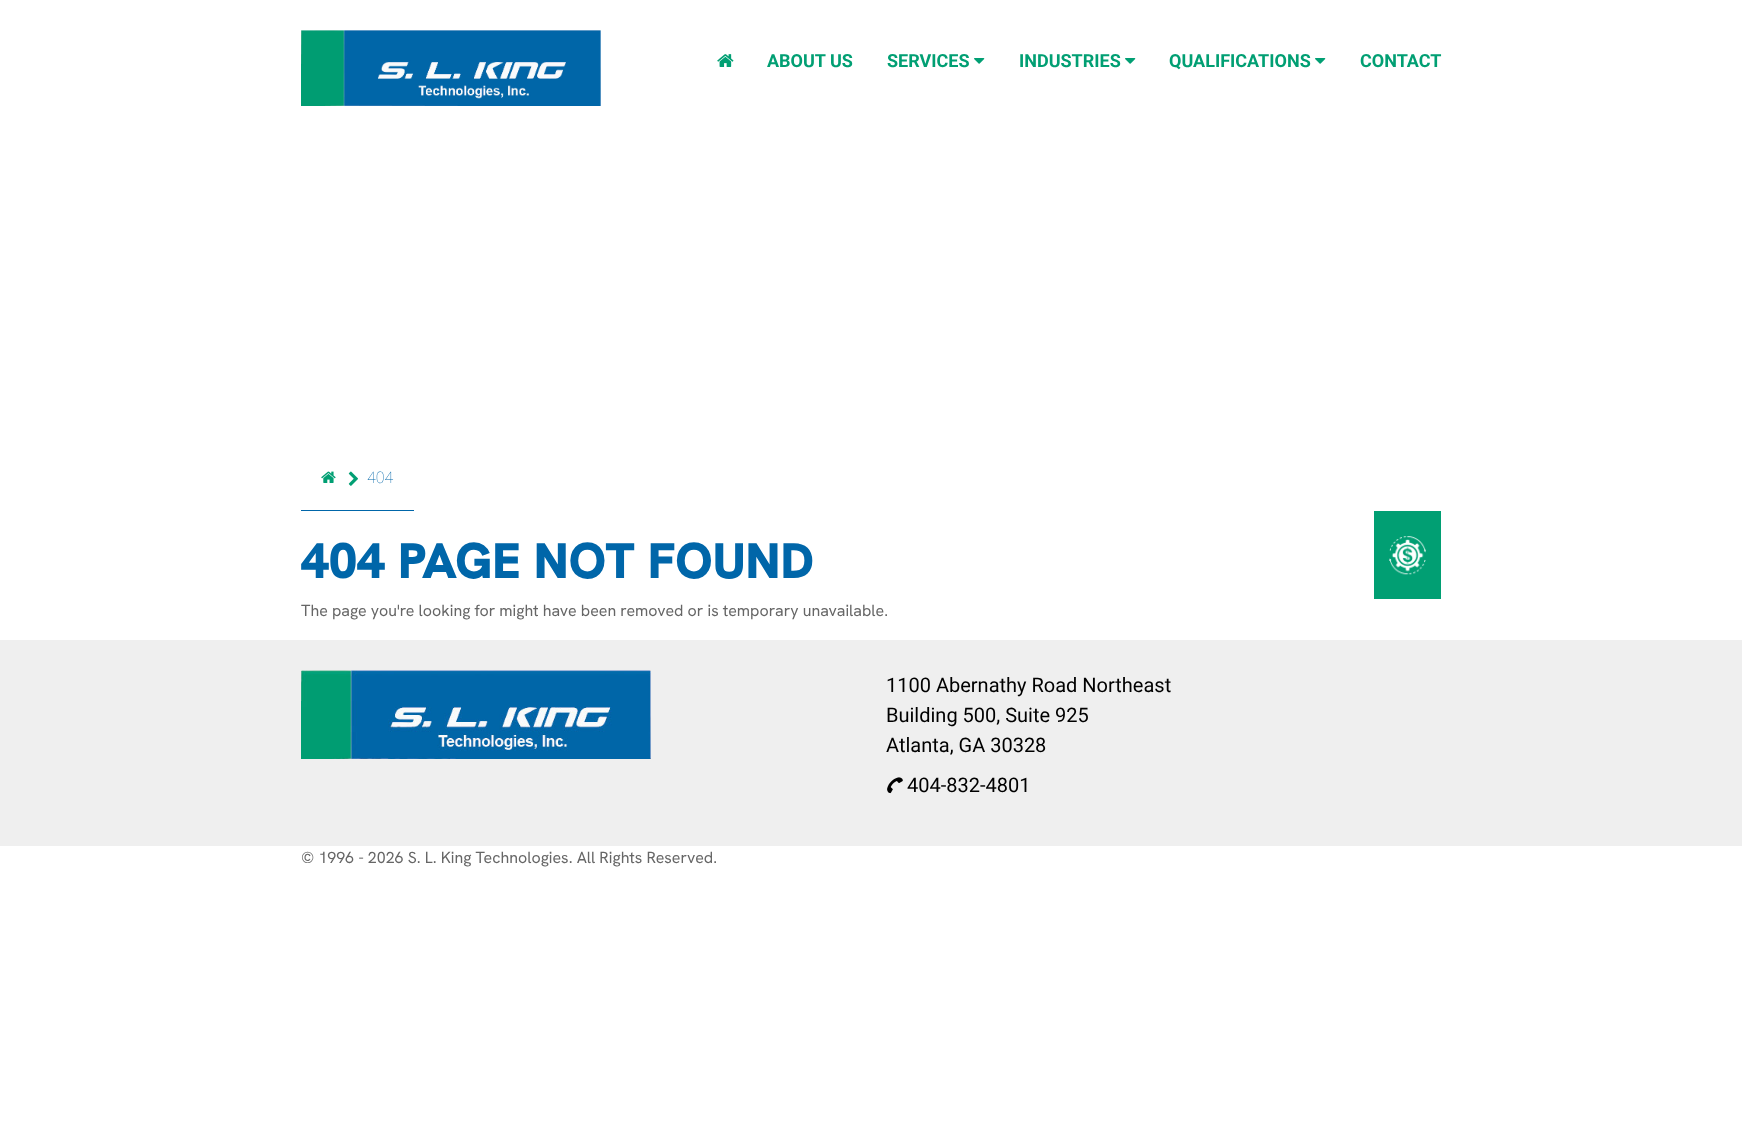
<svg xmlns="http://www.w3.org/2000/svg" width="1742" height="1130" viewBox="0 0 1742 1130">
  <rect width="100%" height="100%" fill="#ffffff"/>
  <image x="301" y="30" width="300" height="76" href="img1.png"/>
  <image x="717" y="54" width="17" height="13" href="img2.png"/>
  <text x="767" y="67" font-family="Roboto" font-size="18" font-weight="bold" fill="#019f73">ABOUT US</text>
  <text x="887" y="67" font-family="Roboto" font-size="18" font-weight="bold" fill="#019f73">SERVICES</text>
  <image x="974" y="58" width="11" height="6" href="img3.png"/>
  <text x="1019" y="67" font-family="Roboto" font-size="18" font-weight="bold" fill="#019f73">INDUSTRIES</text>
  <image x="1125" y="58" width="11" height="6" href="img3.png"/>
  <text x="1169" y="67" font-family="Roboto" font-size="18" font-weight="bold" fill="#019f73">QUALIFICATIONS</text>
  <image x="1315" y="58" width="11" height="6" href="img3.png"/>
  <text x="1360" y="67" font-family="Roboto" font-size="18" font-weight="bold" fill="#019f73">CONTACT</text>
  <rect x="301" y="510" width="113" height="1" fill="#0066a9"/>
  <image x="321" y="471" width="15" height="12" href="img4.png"/>
  <image x="348" y="471" width="10" height="15" href="img5.png"/>
  <text x="367" y="483" font-family="Roboto" font-size="16" font-weight="100" fill="#0066a9">404</text>
  <text x="301" y="578" font-family="Hanken Grotesk" font-size="50" font-weight="900" fill="#0066a9">404 PAGE NOT FOUND</text>
  <rect x="1374" y="511" width="67" height="88" fill="#019f73"/>
  <image x="1389" y="536" width="37" height="39" href="img6.png"/>
  <text x="301" y="616" font-family="Hanken Grotesk" font-size="16" fill="#666666">The page you're looking for might have been removed or is temporary unavailable.</text>
  <rect x="0" y="640" width="1742" height="206" fill="#efefef"/>
  <image x="301" y="670" width="350" height="89" href="img7.png"/>
  <text x="886" y="692" font-family="Roboto" font-size="20" fill="#000000">1100 Abernathy Road Northeast</text>
  <text x="886" y="722" font-family="Roboto" font-size="20" fill="#000000">Building 500, Suite 925</text>
  <text x="886" y="752" font-family="Roboto" font-size="20" fill="#000000">Atlanta, GA 30328</text>
  <image x="887" y="777" width="16" height="17" href="img8.png"/>
  <text x="907" y="792" font-family="Roboto" font-size="20" fill="#000000">404-832-4801</text>
  <text x="301" y="863" font-family="Hanken Grotesk" font-size="16" fill="#666666">© 1996 - 2026 S. L. King Technologies. All Rights Reserved.</text>
</svg>
